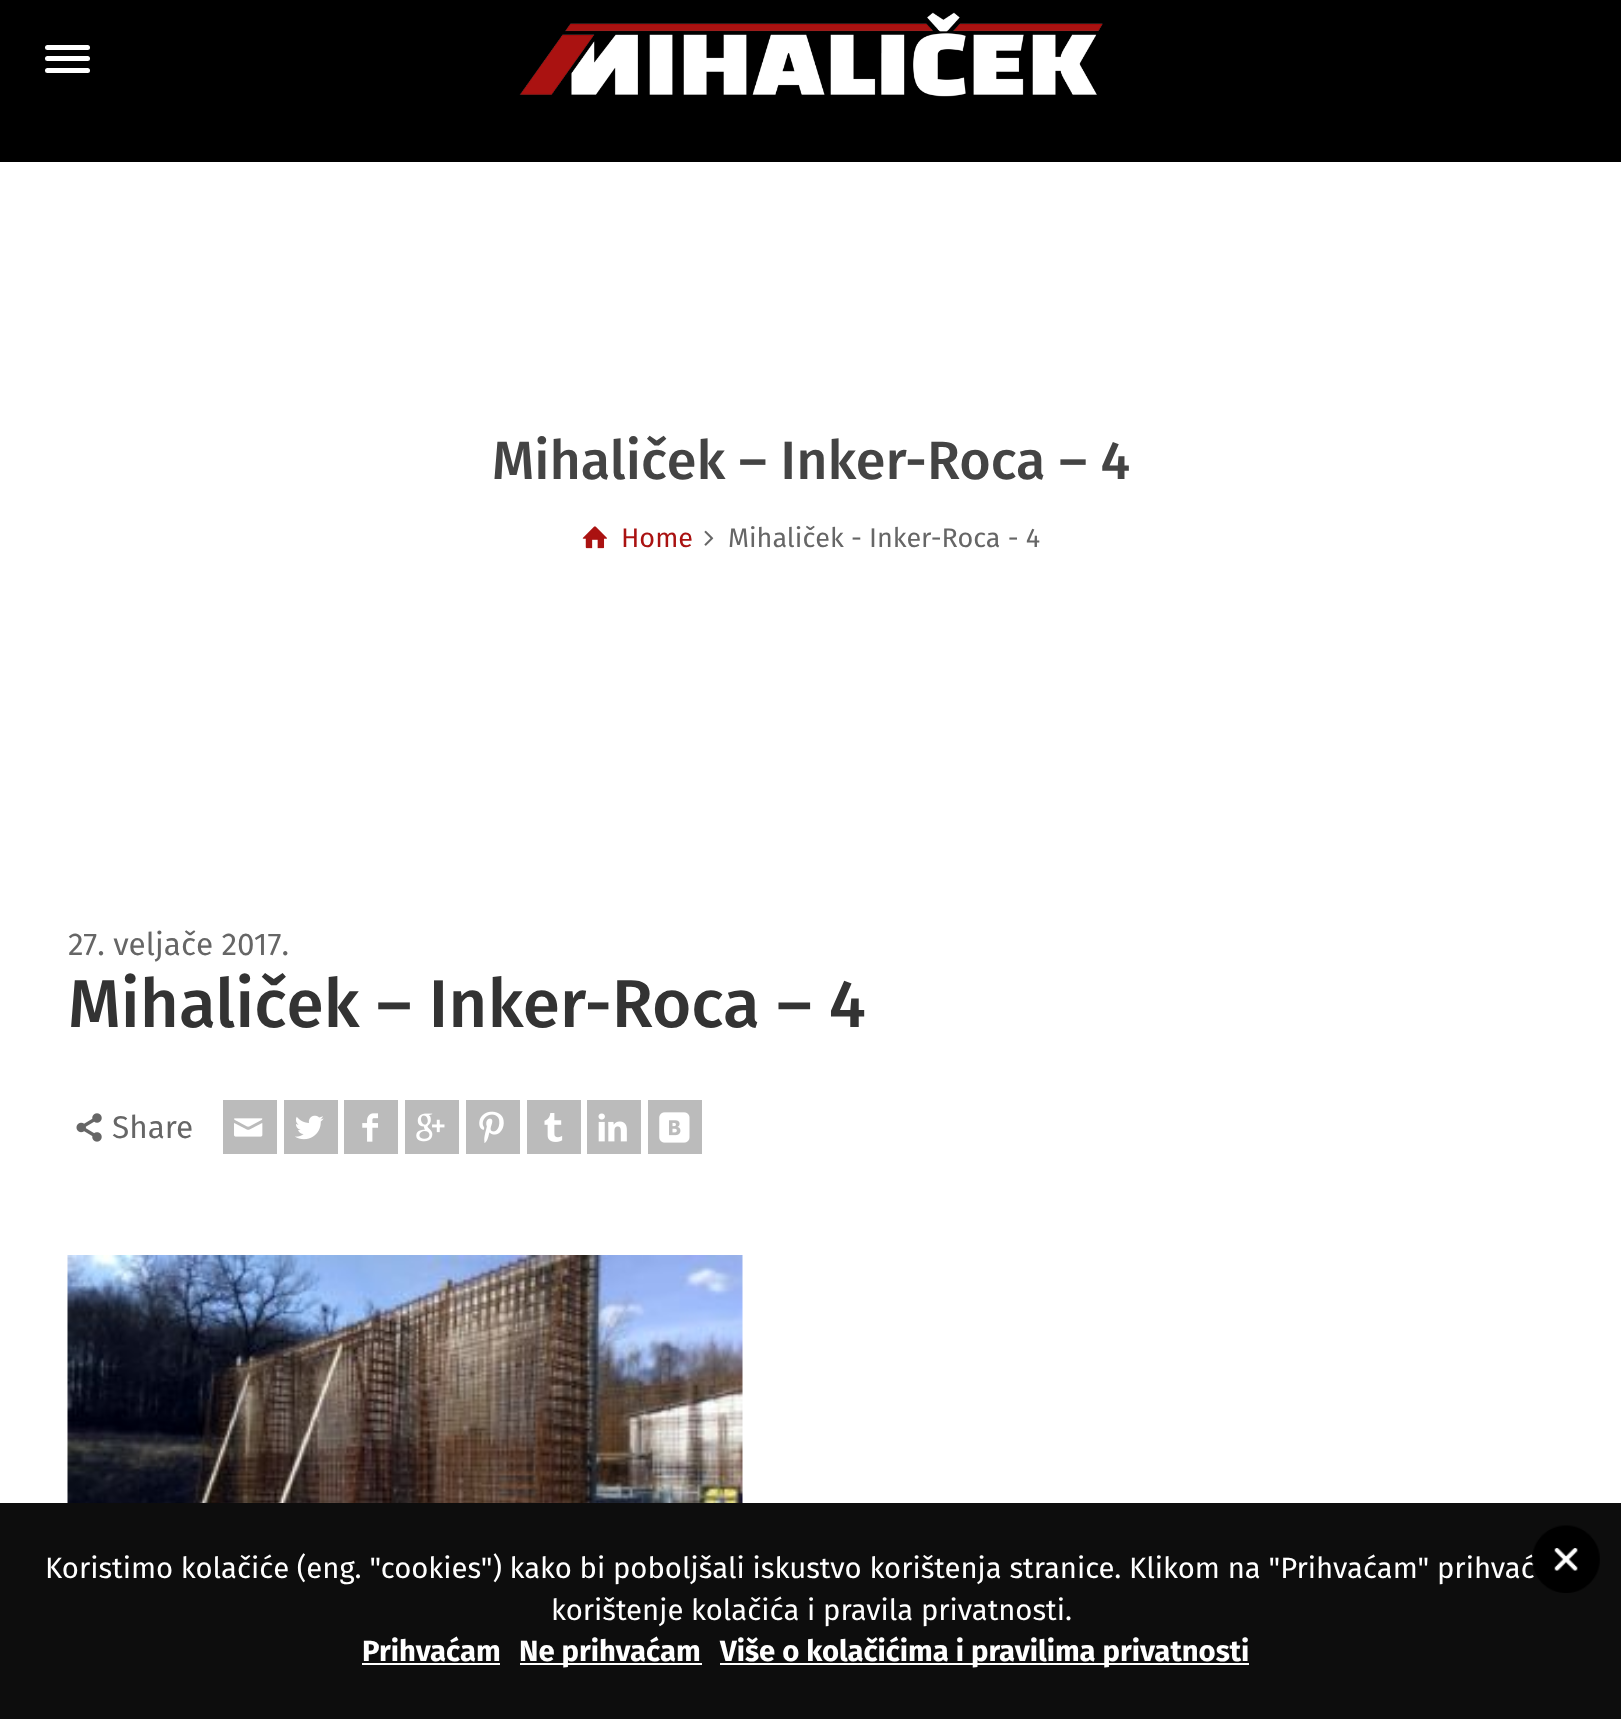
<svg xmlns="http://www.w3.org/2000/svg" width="1621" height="1719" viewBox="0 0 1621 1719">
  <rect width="100%" height="100%" fill="#ffffff"/>
  <rect x="0" y="0" width="1621" height="162" fill="#000000"/>
  <rect x="45" y="45" width="45" height="5" rx="2.5" fill="#ffffff"/>
  <rect x="45" y="56" width="45" height="5" rx="2.5" fill="#ffffff"/>
  <rect x="45" y="68" width="45" height="5" rx="2.5" fill="#ffffff"/>
  <image x="519" y="12" width="584" height="85" href="img1.png"/>
  <text x="492" y="479" font-family="Fira Sans" font-size="54" font-weight="500" fill="#444444">Mihaliček – Inker-Roca – 4</text>
  <image x="582" y="526" width="25" height="23" href="img2.png"/>
  <text x="621" y="547" font-family="Fira Sans" font-size="27" fill="#aa1211">Home</text>
  <image x="704" y="530" width="10" height="16" href="img3.png"/>
  <text x="728" y="547" font-family="Fira Sans" font-size="27" fill="#666666">Mihaliček - Inker-Roca - 4</text>
  <text x="68" y="955" font-family="Fira Sans" font-size="31.5" fill="#666666">27. veljače 2017.</text>
  <text x="68" y="1027" font-family="Fira Sans" font-size="67.5" font-weight="500" fill="#333333">Mihaliček – Inker-Roca – 4</text>
  <image x="76" y="1113" width="26" height="29" href="img4.png"/>
  <text x="112" y="1138" font-family="Fira Sans" font-size="31.5" fill="#666666">Share</text>
  <rect x="223" y="1100" width="54" height="54" fill="#bbbbbb"/>
  <image x="234" y="1118" width="29" height="19" href="img5.png"/>
  <rect x="284" y="1100" width="54" height="54" fill="#bbbbbb"/>
  <image x="295" y="1115" width="29" height="25" href="img6.png"/>
  <rect x="344" y="1100" width="54" height="54" fill="#bbbbbb"/>
  <image x="362" y="1113" width="16" height="29" href="img7.png"/>
  <rect x="405" y="1100" width="54" height="54" fill="#bbbbbb"/>
  <image x="416" y="1113" width="29" height="29" href="img8.png"/>
  <rect x="466" y="1100" width="54" height="54" fill="#bbbbbb"/>
  <image x="479" y="1111" width="25" height="32" href="img9.png"/>
  <rect x="527" y="1100" width="54" height="54" fill="#bbbbbb"/>
  <image x="544" y="1113" width="19" height="29" href="img10.png"/>
  <rect x="587" y="1100" width="54" height="54" fill="#bbbbbb"/>
  <image x="598" y="1113" width="29" height="29" href="img11.png"/>
  <rect x="648" y="1100" width="54" height="54" fill="#bbbbbb"/>
  <image x="659" y="1112" width="31" height="31" href="img12.png"/>
  <image x="67" y="1255" width="676" height="248" href="img13.png"/>
  <rect x="0" y="1503" width="1621" height="216" fill="#0d0d0d"/>
  <text x="45" y="1578" font-family="Fira Sans" font-size="29.25" fill="#ffffff">Koristimo kolačiće (eng. "cookies") kako bi poboljšali iskustvo korištenja stranice. Klikom na "Prihvaćam" prihvać</text>
  <text x="551" y="1620" font-family="Fira Sans" font-size="29.25" fill="#ffffff">korištenje kolačića i pravila privatnosti.</text>
  <image x="1532" y="1525" width="68" height="68" href="img14.png"/>
  <text x="362" y="1661" font-family="Fira Sans" font-size="29.25" font-weight="bold" fill="#ffffff">Prihvaćam</text>
  <rect x="362" y="1663" width="138" height="2" fill="#ffffff"/>
  <rect x="520" y="1663" width="182" height="2" fill="#ffffff"/>
  <text x="519" y="1661" font-family="Fira Sans" font-size="29.25" font-weight="bold" fill="#ffffff">Ne prihvaćam</text>
  <rect x="720" y="1663" width="529" height="2" fill="#ffffff"/>
  <text x="720" y="1661" font-family="Fira Sans" font-size="29.25" font-weight="bold" fill="#ffffff">Više o kolačićima i pravilima privatnosti</text>
</svg>
